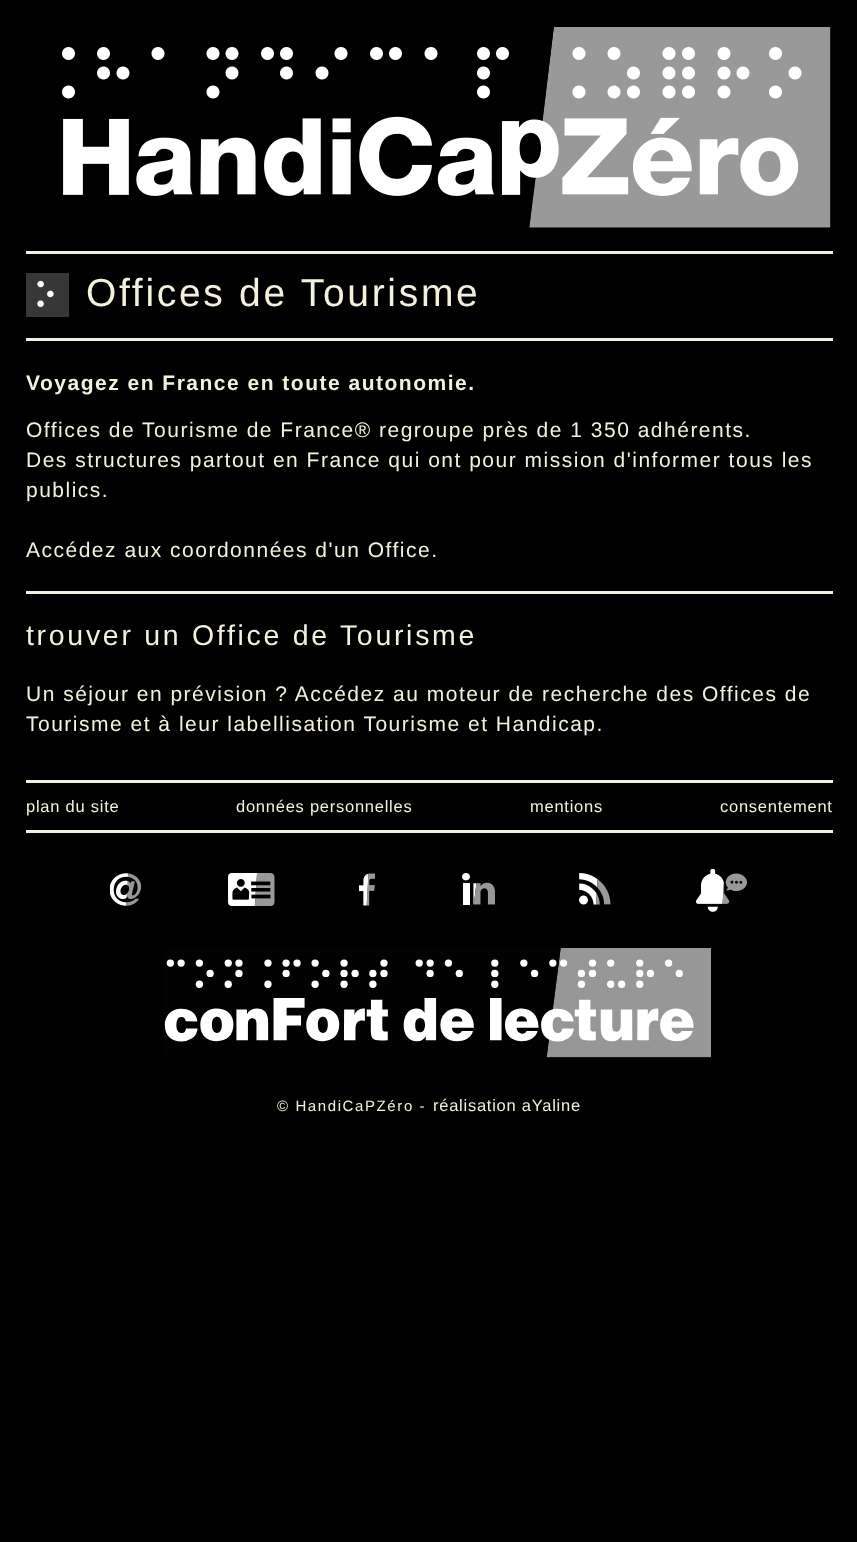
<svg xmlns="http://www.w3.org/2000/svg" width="857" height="1542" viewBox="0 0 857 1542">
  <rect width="100%" height="100%" fill="#000000"/>
  <rect x="26" y="251" width="807" height="3" fill="#f3f1dd"/>
  <image x="62" y="27" width="769" height="201" href="img1.png"/>
  <rect x="26" y="338" width="807" height="3" fill="#f3f1dd"/>
  <image x="26" y="273" width="43" height="44" href="img2.png"/>
  <text x="86" y="306" font-family="Liberation Sans" font-size="39" letter-spacing="2.7" fill="#f3f1dd">Offices de Tourisme</text>
  <rect x="26" y="591" width="807" height="3" fill="#f3f1dd"/>
  <text x="26" y="390" font-family="Liberation Sans" font-size="21" font-weight="bold" letter-spacing="1.5" fill="#f3f1dd">Voyagez en France en toute autonomie.</text>
  <text x="26" y="437" font-family="Liberation Sans" font-size="21" letter-spacing="1.5" fill="#f3f1dd">Offices de Tourisme de France® regroupe près de 1 350 adhérents.</text>
  <text x="26" y="467" font-family="Liberation Sans" font-size="21" letter-spacing="1.5" fill="#f3f1dd">Des structures partout en France qui ont pour mission d'informer tous les</text>
  <text x="26" y="497" font-family="Liberation Sans" font-size="21" letter-spacing="1.5" fill="#f3f1dd">publics.</text>
  <text x="26" y="557" font-family="Liberation Sans" font-size="21" letter-spacing="1.5" fill="#f3f1dd">Accédez aux coordonnées d'un Office.</text>
  <text x="26" y="645" font-family="Liberation Sans" font-size="28.5" letter-spacing="2.7" fill="#f3f1dd">trouver un Office de Tourisme</text>
  <text x="26" y="701" font-family="Liberation Sans" font-size="21" letter-spacing="1.5" fill="#f3f1dd">Un séjour en prévision ? Accédez au moteur de recherche des Offices de</text>
  <text x="26" y="731" font-family="Liberation Sans" font-size="21" letter-spacing="1.5" fill="#f3f1dd">Tourisme et à leur labellisation Tourisme et Handicap.</text>
  <rect x="26" y="780" width="807" height="3" fill="#f3f1dd"/>
  <rect x="26" y="830" width="807" height="3" fill="#f3f1dd"/>
  <text x="26" y="812" font-family="Liberation Sans" font-size="16.5" letter-spacing="0.75" fill="#f3f1dd">plan du site</text>
  <text x="236" y="812" font-family="Liberation Sans" font-size="16.5" letter-spacing="0.75" fill="#f3f1dd">données personnelles</text>
  <text x="530" y="812" font-family="Liberation Sans" font-size="16.5" letter-spacing="0.75" fill="#f3f1dd">mentions</text>
  <text x="720" y="812" font-family="Liberation Sans" font-size="16.5" letter-spacing="0.75" fill="#f3f1dd">consentement</text>
  <image x="110" y="873" width="31" height="33" href="img3.png"/>
  <image x="228" y="873" width="47" height="33" href="img4.png"/>
  <image x="359" y="873" width="16" height="33" href="img5.png"/>
  <image x="462" y="873" width="33" height="32" href="img6.png"/>
  <image x="579" y="873" width="32" height="32" href="img7.png"/>
  <image x="696" y="869" width="51" height="43" href="img8.png"/>
  <image x="164" y="948" width="547" height="110" href="img9.png"/>
  <text x="277" y="1111" font-family="Liberation Sans" font-size="15" letter-spacing="1.6" fill="#f3f1dd">© HandiCaPZéro -</text>
  <text x="433" y="1111" font-family="Liberation Sans" font-size="16.5" letter-spacing="0.75" fill="#f3f1dd">réalisation aYaline</text>
</svg>
